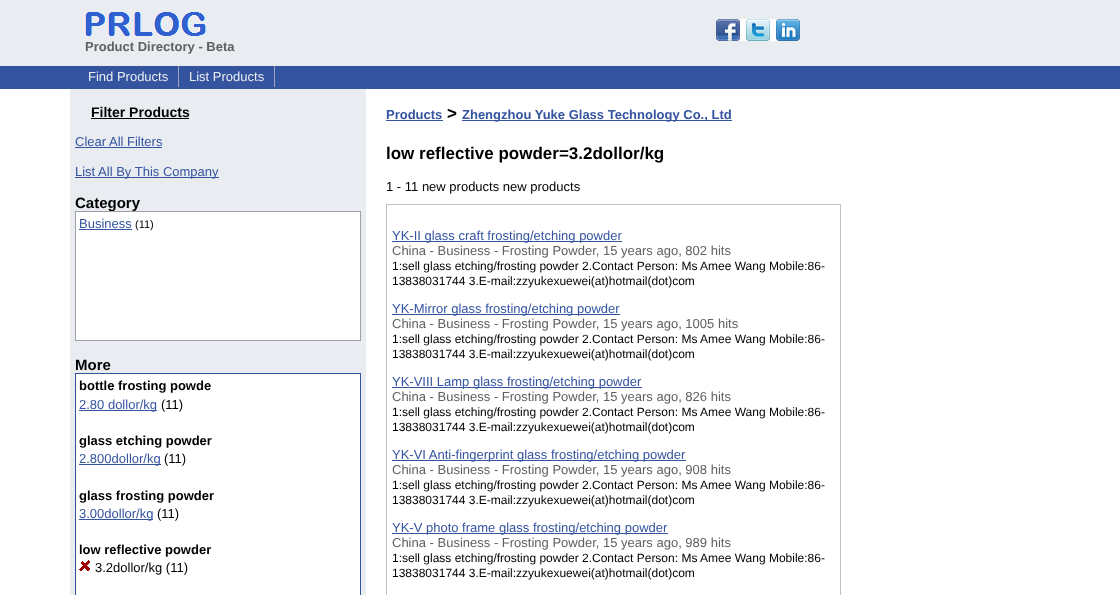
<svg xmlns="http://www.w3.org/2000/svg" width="1120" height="595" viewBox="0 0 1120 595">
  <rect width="100%" height="100%" fill="#ffffff"/>
  <rect x="0" y="0" width="1120" height="66" fill="#e9edf2"/>
  <image x="716" y="19" width="84" height="22" href="img1.png"/>
  <image x="85" y="12" width="121" height="24" href="img2.png"/>
  <text x="85" y="51" font-family="Liberation Sans" font-size="13" font-weight="bold" fill="#606060">Product Directory - Beta</text>
  <rect x="0" y="66" width="1120" height="23" fill="#3454a0"/>
  <rect x="178" y="66" width="1" height="21" fill="#a0a0c0"/>
  <text x="88" y="81" font-family="Liberation Sans" font-size="13" fill="#e9edf2">Find Products</text>
  <rect x="274" y="66" width="1" height="21" fill="#a0a0c0"/>
  <text x="189" y="81" font-family="Liberation Sans" font-size="13" fill="#e9edf2">List Products</text>
  <rect x="70" y="89" width="296" height="506" fill="#e9edf2"/>
  <text x="91" y="117" font-family="Liberation Sans" font-size="14" font-weight="bold" fill="#000000">Filter Products</text>
  <rect x="91" y="118" width="98" height="1" fill="#000000"/>
  <text x="75" y="146" font-family="Liberation Sans" font-size="13" fill="#3454a0">Clear All Filters</text>
  <rect x="75" y="147" width="87" height="1" fill="#3454a0"/>
  <rect x="75" y="177" width="144" height="1" fill="#3454a0"/>
  <text x="75" y="176" font-family="Liberation Sans" font-size="13" fill="#3454a0">List All By This Company</text>
  <text x="75" y="208" font-family="Liberation Sans" font-size="15" font-weight="bold" fill="#000000">Category</text>
  <rect x="75.5" y="211.5" width="285" height="129" fill="#ffffff" stroke="#a0a0a0"/>
  <text x="79" y="228" font-family="Liberation Sans" font-size="13" fill="#3454a0">Business</text>
  <rect x="79" y="229" width="53" height="1" fill="#3454a0"/>
  <text x="135" y="228" font-family="Liberation Sans" font-size="11" fill="#000000">(11)</text>
  <text x="75" y="370" font-family="Liberation Sans" font-size="15" font-weight="bold" fill="#000000">More</text>
  <rect x="75.5" y="373.5" width="285" height="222" fill="#ffffff" stroke="#3454a0"/>
  <text x="79" y="390" font-family="Liberation Sans" font-size="13" font-weight="bold" fill="#000000">bottle frosting powde</text>
  <rect x="79" y="410" width="78" height="1" fill="#3454a0"/>
  <text x="79" y="409" font-family="Liberation Sans" font-size="13" fill="#3454a0">2.80 dollor/kg</text>
  <text x="161" y="409" font-family="Liberation Sans" font-size="13" fill="#000000">(11)</text>
  <text x="79" y="445" font-family="Liberation Sans" font-size="13" font-weight="bold" fill="#000000">glass etching powder</text>
  <rect x="79" y="464" width="82" height="1" fill="#3454a0"/>
  <text x="79" y="463" font-family="Liberation Sans" font-size="13" fill="#3454a0">2.800dollor/kg</text>
  <text x="164" y="463" font-family="Liberation Sans" font-size="13" fill="#000000">(11)</text>
  <text x="79" y="500" font-family="Liberation Sans" font-size="13" font-weight="bold" fill="#000000">glass frosting powder</text>
  <rect x="79" y="519" width="74" height="1" fill="#3454a0"/>
  <text x="79" y="518" font-family="Liberation Sans" font-size="13" fill="#3454a0">3.00dollor/kg</text>
  <text x="157" y="518" font-family="Liberation Sans" font-size="13" fill="#000000">(11)</text>
  <text x="79" y="554" font-family="Liberation Sans" font-size="13" font-weight="bold" fill="#000000">low reflective powder</text>
  <image x="79" y="560" width="11" height="11" href="img3.png"/>
  <text x="95" y="572" font-family="Liberation Sans" font-size="13" fill="#000000">3.2dollor/kg (11)</text>
  <text x="386" y="119" font-family="Liberation Sans" font-size="13" font-weight="bold" fill="#3454a0">Products</text>
  <rect x="386" y="120" width="57" height="1" fill="#3454a0"/>
  <text x="447" y="119" font-family="Liberation Sans" font-size="17" font-weight="bold" fill="#000000">&gt;</text>
  <rect x="462" y="120" width="270" height="1" fill="#3454a0"/>
  <text x="462" y="119" font-family="Liberation Sans" font-size="13" font-weight="bold" fill="#3454a0">Zhengzhou Yuke Glass Technology Co., Ltd</text>
  <text x="386" y="159" font-family="Liberation Sans" font-size="17" font-weight="bold" fill="#000000">low reflective powder=3.2dollor/kg</text>
  <text x="386" y="191" font-family="Liberation Sans" font-size="13" fill="#000000">1 - 11 new products new products</text>
  <rect x="386.5" y="204.5" width="454" height="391" fill="none" stroke="#c0c0c0"/>
  <rect x="392" y="241" width="230" height="1" fill="#3454a0"/>
  <text x="392" y="240" font-family="Liberation Sans" font-size="13" fill="#3454a0">YK-II glass craft frosting/etching powder</text>
  <text x="392" y="255" font-family="Liberation Sans" font-size="13" fill="#606060">China - Business - Frosting Powder, 15 years ago, 802 hits</text>
  <text x="392" y="270" font-family="Liberation Sans" font-size="12" fill="#000000">1:sell glass etching/frosting powder</text>
  <text x="582" y="270" font-family="Liberation Sans" font-size="12" fill="#000000">2.Contact Person: Ms</text>
  <text x="700" y="270" font-family="Liberation Sans" font-size="12" fill="#000000">Amee Wang Mobile:86-</text>
  <text x="392" y="285" font-family="Liberation Sans" font-size="12" fill="#000000">13838031744 3.E-mail:zzyukexuewei(at)hotmail(dot)com</text>
  <rect x="392" y="314" width="228" height="1" fill="#3454a0"/>
  <text x="392" y="313" font-family="Liberation Sans" font-size="13" fill="#3454a0">YK-Mirror glass frosting/etching powder</text>
  <text x="392" y="328" font-family="Liberation Sans" font-size="13" fill="#606060">China - Business - Frosting Powder, 15 years ago, 1005 hits</text>
  <text x="392" y="343" font-family="Liberation Sans" font-size="12" fill="#000000">1:sell glass etching/frosting powder</text>
  <text x="582" y="343" font-family="Liberation Sans" font-size="12" fill="#000000">2.Contact Person: Ms</text>
  <text x="700" y="343" font-family="Liberation Sans" font-size="12" fill="#000000">Amee Wang Mobile:86-</text>
  <text x="392" y="358" font-family="Liberation Sans" font-size="12" fill="#000000">13838031744 3.E-mail:zzyukexuewei(at)hotmail(dot)com</text>
  <rect x="392" y="387" width="250" height="1" fill="#3454a0"/>
  <text x="392" y="386" font-family="Liberation Sans" font-size="13" fill="#3454a0">YK-VIII Lamp glass frosting/etching powder</text>
  <text x="392" y="401" font-family="Liberation Sans" font-size="13" fill="#606060">China - Business - Frosting Powder, 15 years ago, 826 hits</text>
  <text x="392" y="416" font-family="Liberation Sans" font-size="12" fill="#000000">1:sell glass etching/frosting powder</text>
  <text x="582" y="416" font-family="Liberation Sans" font-size="12" fill="#000000">2.Contact Person: Ms</text>
  <text x="700" y="416" font-family="Liberation Sans" font-size="12" fill="#000000">Amee Wang Mobile:86-</text>
  <text x="392" y="431" font-family="Liberation Sans" font-size="12" fill="#000000">13838031744 3.E-mail:zzyukexuewei(at)hotmail(dot)com</text>
  <rect x="392" y="460" width="294" height="1" fill="#3454a0"/>
  <text x="392" y="459" font-family="Liberation Sans" font-size="13" fill="#3454a0">YK-VI Anti-fingerprint glass frosting/etching powder</text>
  <text x="392" y="474" font-family="Liberation Sans" font-size="13" fill="#606060">China - Business - Frosting Powder, 15 years ago, 908 hits</text>
  <text x="392" y="489" font-family="Liberation Sans" font-size="12" fill="#000000">1:sell glass etching/frosting powder</text>
  <text x="582" y="489" font-family="Liberation Sans" font-size="12" fill="#000000">2.Contact Person: Ms</text>
  <text x="700" y="489" font-family="Liberation Sans" font-size="12" fill="#000000">Amee Wang Mobile:86-</text>
  <text x="392" y="504" font-family="Liberation Sans" font-size="12" fill="#000000">13838031744 3.E-mail:zzyukexuewei(at)hotmail(dot)com</text>
  <rect x="392" y="533" width="276" height="1" fill="#3454a0"/>
  <text x="392" y="532" font-family="Liberation Sans" font-size="13" fill="#3454a0">YK-V photo frame glass frosting/etching powder</text>
  <text x="392" y="547" font-family="Liberation Sans" font-size="13" fill="#606060">China - Business - Frosting Powder, 15 years ago, 989 hits</text>
  <text x="392" y="562" font-family="Liberation Sans" font-size="12" fill="#000000">1:sell glass etching/frosting powder</text>
  <text x="582" y="562" font-family="Liberation Sans" font-size="12" fill="#000000">2.Contact Person: Ms</text>
  <text x="700" y="562" font-family="Liberation Sans" font-size="12" fill="#000000">Amee Wang Mobile:86-</text>
  <text x="392" y="577" font-family="Liberation Sans" font-size="12" fill="#000000">13838031744 3.E-mail:zzyukexuewei(at)hotmail(dot)com</text>
</svg>
